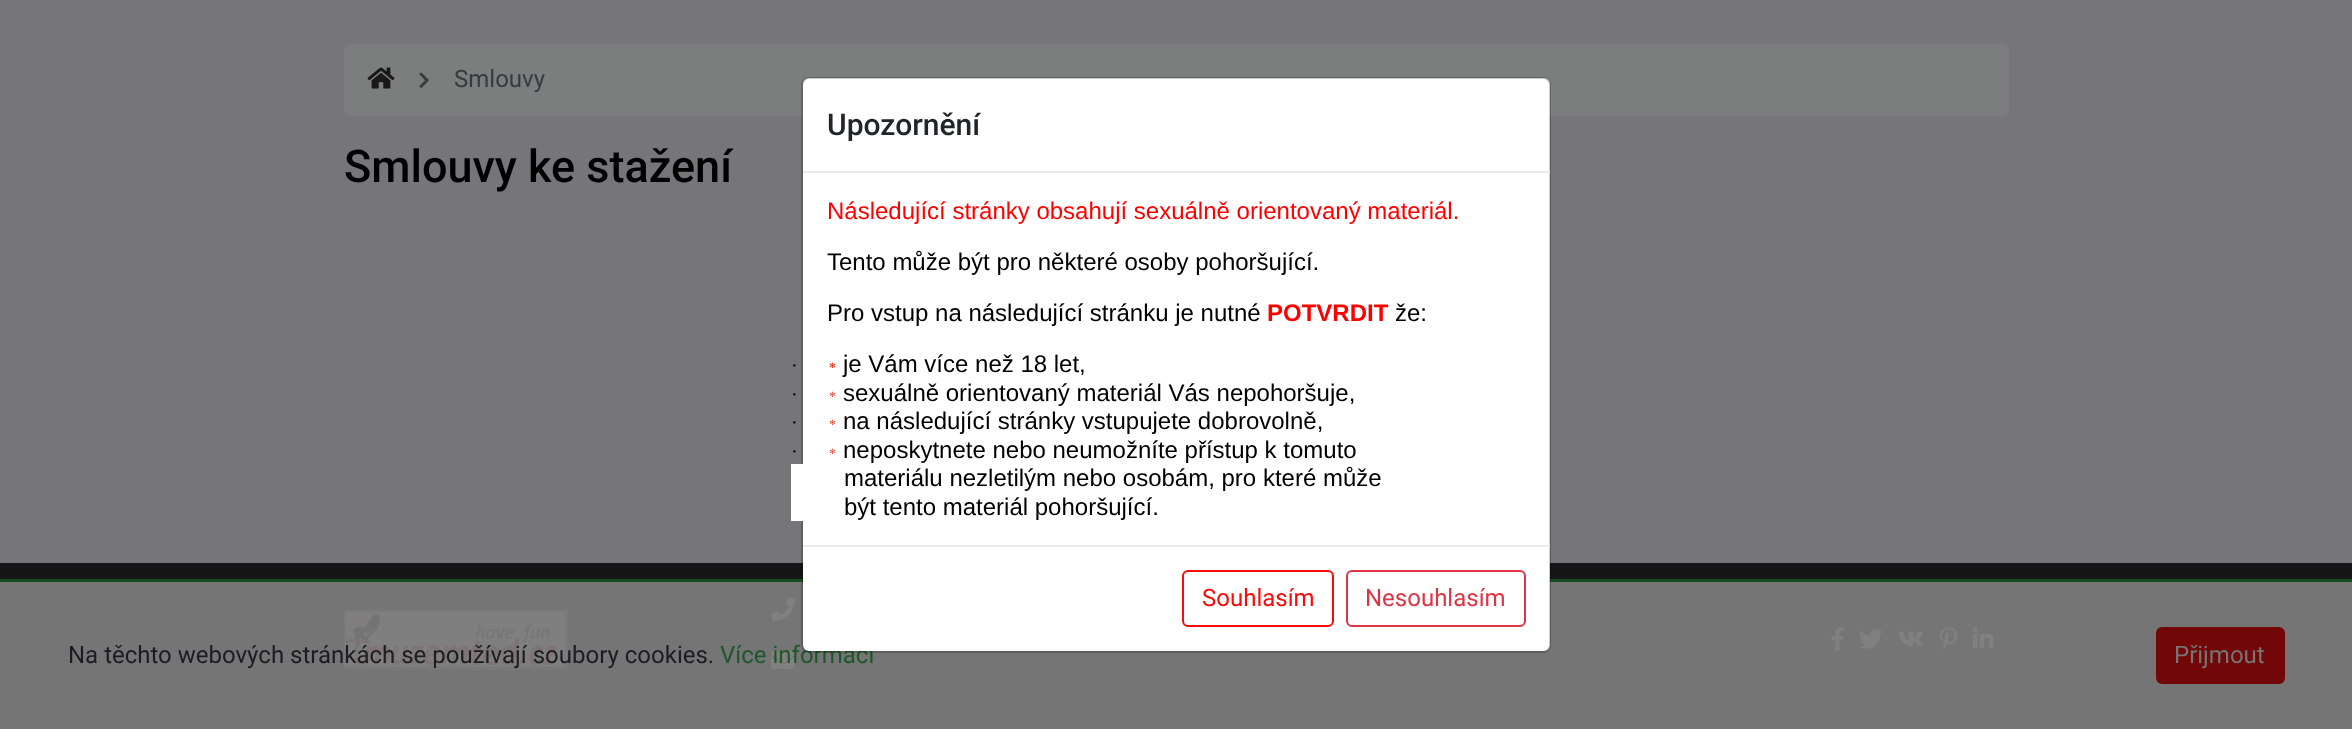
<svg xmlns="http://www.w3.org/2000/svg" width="2352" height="729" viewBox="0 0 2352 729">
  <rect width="100%" height="100%" fill="#76767a"/>
  <rect x="344" y="44" width="1665" height="72" rx="6" fill="#7c7d7d"/>
  <image x="367" y="67" width="28" height="22" href="img1.png"/>
  <image x="419" y="72" width="10" height="16" href="img2.png"/>
  <text x="454" y="87" font-family="Roboto" font-size="24" fill="#363b3f">Smlouvy</text>
  <text x="344" y="182" font-family="Roboto" font-size="45" font-weight="500" fill="#000000">Smlouvy ke stažení</text>
  <rect x="0" y="563" width="2352" height="16" fill="#151515"/>
  <rect x="0" y="582" width="2352" height="147" fill="#757575"/>
  <image x="343" y="610" width="226" height="60" href="img3.png"/>
  <image x="771" y="597" width="24" height="24" href="img4.png"/>
  <image x="771" y="651" width="24" height="18" href="img5.png"/>
  <image x="1831" y="627" width="13" height="24" href="img6.png"/>
  <image x="1858" y="629" width="25" height="20" href="img7.png"/>
  <image x="1898" y="631" width="26" height="16" href="img8.png"/>
  <image x="1939" y="627" width="19" height="24" href="img9.png"/>
  <image x="1972" y="627" width="22" height="21" href="img10.png"/>
  <rect x="0" y="579" width="2352" height="3" fill="#144d21"/>
  <text x="720" y="663" font-family="Roboto" font-size="24" fill="#1e572b">Více informací</text>
  <rect x="803" y="78" width="747" height="573" rx="6" fill="#ffffff"/>
  <rect x="802" y="78" width="748" height="574" rx="7" fill="none" stroke="#000000" stroke-opacity="0.2" stroke-width="2"/>
  <rect x="803" y="171" width="747" height="2" fill="#e9ecef"/>
  <text x="827" y="135" font-family="Roboto" font-size="30" font-weight="500" fill="#212529">Upozornění</text>
  <text x="827" y="219" font-family="Liberation Sans" font-size="24" fill="#ff0000">Následující stránky obsahují sexuálně orientovaný materiál.</text>
  <text x="827" y="270" font-family="Liberation Sans" font-size="24" fill="#000000">Tento může být pro některé osoby pohoršující.</text>
  <text x="827" y="321" font-family="Liberation Sans" font-size="24" fill="#000000">Pro vstup na následující stránku je nutné</text>
  <text x="1267" y="321" font-family="Liberation Sans" font-size="24" font-weight="bold" fill="#ff0000">POTVRDIT</text>
  <text x="1395" y="321" font-family="Liberation Sans" font-size="24" fill="#000000">že:</text>
  <text x="791" y="372" font-family="Liberation Serif" font-size="20" fill="#000000">·</text>
  <text x="829" y="372" font-family="Liberation Serif" font-size="14" font-weight="bold" fill="#e03e2d">*</text>
  <text x="843" y="372" font-family="Liberation Sans" font-size="24" fill="#000000">je Vám více než 18 let,</text>
  <text x="791" y="401" font-family="Liberation Serif" font-size="20" fill="#000000">·</text>
  <text x="829" y="401" font-family="Liberation Serif" font-size="14" fill="#e03e2d">*</text>
  <text x="843" y="401" font-family="Liberation Sans" font-size="24" fill="#000000">sexuálně orientovaný materiál Vás nepohoršuje,</text>
  <text x="791" y="429" font-family="Liberation Serif" font-size="20" fill="#000000">·</text>
  <text x="829" y="429" font-family="Liberation Serif" font-size="14" fill="#e03e2d">*</text>
  <text x="843" y="429" font-family="Liberation Sans" font-size="24" fill="#000000">na následující stránky vstupujete dobrovolně,</text>
  <text x="791" y="458" font-family="Liberation Serif" font-size="20" fill="#000000">·</text>
  <text x="829" y="458" font-family="Liberation Serif" font-size="14" fill="#e03e2d">*</text>
  <text x="843" y="458" font-family="Liberation Sans" font-size="24" fill="#000000">neposkytnete nebo neumožníte přístup k tomuto</text>
  <rect x="791" y="464" width="12" height="57" fill="#ffffff"/>
  <text x="844" y="486" font-family="Liberation Sans" font-size="24" fill="#000000">materiálu nezletilým nebo osobám, pro které může</text>
  <text x="844" y="515" font-family="Liberation Sans" font-size="24" fill="#000000">být tento materiál pohoršující.</text>
  <rect x="803" y="545" width="747" height="2" fill="#e9ecef"/>
  <rect x="1183" y="571" width="150" height="55" rx="5" fill="none" stroke="#f90b0b" stroke-width="2"/>
  <text x="1202" y="606" font-family="Roboto" font-size="24" fill="#f90b0b">Souhlasím</text>
  <rect x="1347" y="571" width="178" height="55" rx="5" fill="none" stroke="#dc3545" stroke-width="2"/>
  <text x="1365" y="606" font-family="Roboto" font-size="24" fill="#dc3545">Nesouhlasím</text>
  <text x="68" y="663" font-family="Roboto" font-size="24" fill="#1b1d1f">Na těchto webových stránkách se používají soubory cookies.</text>
  <rect x="2157" y="628" width="127" height="55" rx="5" fill="#720707" stroke="#720707" stroke-width="2"/>
  <text x="2174" y="663" font-family="Roboto" font-size="24" fill="#757575">Přijmout</text>
</svg>
